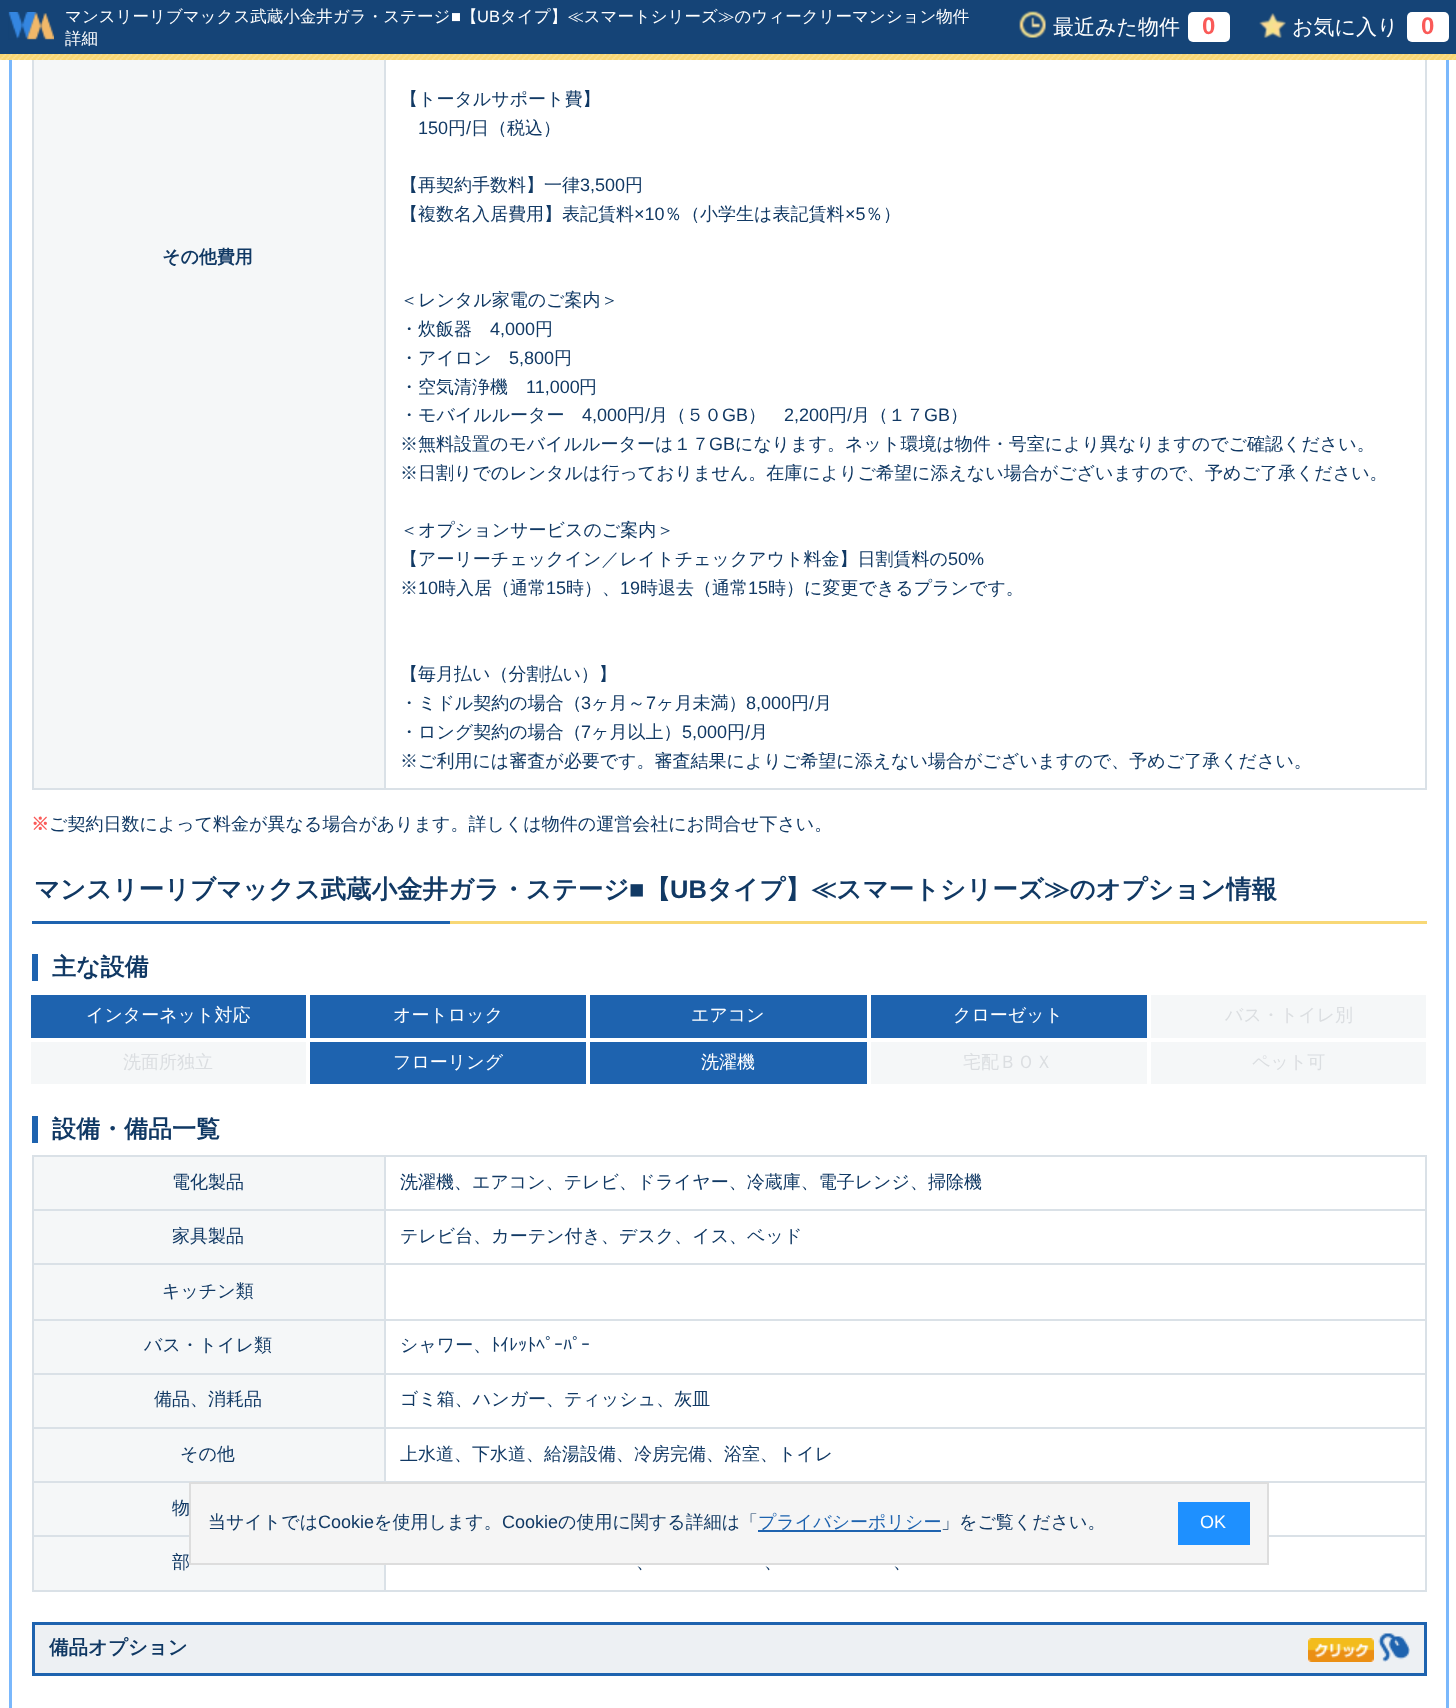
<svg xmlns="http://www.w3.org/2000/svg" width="1456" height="1708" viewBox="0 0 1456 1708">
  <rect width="100%" height="100%" fill="#ffffff"/>
  <rect x="10.5" y="-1.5" width="1437" height="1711" fill="none" stroke="#7ab8fc" stroke-width="3"/>
  <rect x="0" y="0" width="1456" height="54" fill="#154477"/>
  <image x="0" y="54" width="1456" height="6" href="img1.png"/>
  <image x="8" y="12" width="46" height="28" href="img2.png"/>
  <text x="65" y="22" font-family="WenQuanYi Zen Hei" font-size="16.5" font-weight="500" fill="#ffffff">マンスリーリブマックス武蔵小金井ガラ・ステージ</text>
  <text x="451" y="22" font-family="Liberation Sans" font-size="16.5" fill="#ffffff">■</text>
  <text x="461" y="22" font-family="WenQuanYi Zen Hei" font-size="16.5" font-weight="500" fill="#ffffff">【</text>
  <text x="477" y="22" font-family="Liberation Sans" font-size="16.5" fill="#ffffff">UB</text>
  <text x="500" y="22" font-family="WenQuanYi Zen Hei" font-size="16.5" font-weight="500" fill="#ffffff">タイプ】≪スマートシリーズ≫のウィークリーマンション物件</text>
  <text x="65" y="44" font-family="WenQuanYi Zen Hei" font-size="16.5" font-weight="500" fill="#ffffff">詳細</text>
  <image x="1019" y="11" width="27" height="27" href="img3.png"/>
  <text x="1053" y="34" font-family="WenQuanYi Zen Hei" font-size="21" font-weight="500" fill="#ffffff">最近みた物件</text>
  <rect x="1188" y="12" width="42" height="30" rx="5" fill="#ffffff"/>
  <text x="1202" y="34" font-family="Liberation Sans" font-size="24" font-weight="bold" fill="#fa5a58">0</text>
  <image x="1259" y="13" width="27" height="25" href="img4.png"/>
  <text x="1292" y="34" font-family="WenQuanYi Zen Hei" font-size="21" font-weight="500" fill="#ffffff">お気に入り</text>
  <rect x="1407" y="12" width="42" height="30" rx="5" fill="#ffffff"/>
  <text x="1421" y="34" font-family="Liberation Sans" font-size="24" font-weight="bold" fill="#fa5a58">0</text>
  <rect x="32" y="60" width="2" height="729" fill="#dae1e7"/>
  <rect x="34" y="60" width="350" height="728" fill="#f5f7f8"/>
  <rect x="1425" y="60" width="2" height="729" fill="#dae1e7"/>
  <rect x="384" y="788" width="1043" height="2" fill="#dae1e7"/>
  <rect x="384" y="60" width="2" height="729" fill="#dae1e7"/>
  <rect x="32" y="788" width="354" height="2" fill="#dae1e7"/>
  <text x="162" y="263" font-family="WenQuanYi Zen Hei" font-size="18" font-weight="bold" fill="#113964">その他費用</text>
  <text x="400" y="105" font-family="WenQuanYi Zen Hei" font-size="18" font-weight="500" fill="#113964">【トータルサポート費】</text>
  <text x="418" y="134" font-family="Liberation Sans" font-size="18" fill="#113964">150</text>
  <text x="448" y="134" font-family="WenQuanYi Zen Hei" font-size="18" font-weight="500" fill="#113964">円</text>
  <text x="466" y="134" font-family="Liberation Sans" font-size="18" fill="#113964">/</text>
  <text x="471" y="134" font-family="WenQuanYi Zen Hei" font-size="18" font-weight="500" fill="#113964">日（税込）</text>
  <text x="400" y="191" font-family="WenQuanYi Zen Hei" font-size="18" font-weight="500" fill="#113964">【再契約手数料】一律</text>
  <text x="580" y="191" font-family="Liberation Sans" font-size="18" fill="#113964">3,500</text>
  <text x="625" y="191" font-family="WenQuanYi Zen Hei" font-size="18" font-weight="500" fill="#113964">円</text>
  <text x="400" y="220" font-family="WenQuanYi Zen Hei" font-size="18" font-weight="500" fill="#113964">【複数名入居費用】表記賃料</text>
  <text x="634" y="220" font-family="Liberation Sans" font-size="18" fill="#113964">×10</text>
  <text x="664" y="220" font-family="WenQuanYi Zen Hei" font-size="18" font-weight="500" fill="#113964">％（小学生は表記賃料</text>
  <text x="845" y="220" font-family="Liberation Sans" font-size="18" fill="#113964">×5</text>
  <text x="865" y="220" font-family="WenQuanYi Zen Hei" font-size="18" font-weight="500" fill="#113964">％）</text>
  <text x="400" y="306" font-family="WenQuanYi Zen Hei" font-size="18" font-weight="500" fill="#113964">＜レンタル家電のご案内＞</text>
  <text x="400" y="335" font-family="WenQuanYi Zen Hei" font-size="18" font-weight="500" fill="#113964">・炊飯器</text>
  <text x="490" y="335" font-family="Liberation Sans" font-size="18" fill="#113964">4,000</text>
  <text x="535" y="335" font-family="WenQuanYi Zen Hei" font-size="18" font-weight="500" fill="#113964">円</text>
  <text x="400" y="364" font-family="WenQuanYi Zen Hei" font-size="18" font-weight="500" fill="#113964">・アイロン</text>
  <text x="509" y="364" font-family="Liberation Sans" font-size="18" fill="#113964">5,800</text>
  <text x="554" y="364" font-family="WenQuanYi Zen Hei" font-size="18" font-weight="500" fill="#113964">円</text>
  <text x="400" y="393" font-family="WenQuanYi Zen Hei" font-size="18" font-weight="500" fill="#113964">・空気清浄機</text>
  <text x="526" y="393" font-family="Liberation Sans" font-size="18" fill="#113964">11,000</text>
  <text x="579" y="393" font-family="WenQuanYi Zen Hei" font-size="18" font-weight="500" fill="#113964">円</text>
  <text x="400" y="421" font-family="WenQuanYi Zen Hei" font-size="18" font-weight="500" fill="#113964">・モバイルルーター</text>
  <text x="582" y="421" font-family="Liberation Sans" font-size="18" fill="#113964">4,000</text>
  <text x="627" y="421" font-family="WenQuanYi Zen Hei" font-size="18" font-weight="500" fill="#113964">円</text>
  <text x="645" y="421" font-family="Liberation Sans" font-size="18" fill="#113964">/</text>
  <text x="650" y="421" font-family="WenQuanYi Zen Hei" font-size="18" font-weight="500" fill="#113964">月（５０</text>
  <text x="722" y="421" font-family="Liberation Sans" font-size="18" fill="#113964">GB</text>
  <text x="748" y="421" font-family="WenQuanYi Zen Hei" font-size="18" font-weight="500" fill="#113964">）</text>
  <text x="784" y="421" font-family="Liberation Sans" font-size="18" fill="#113964">2,200</text>
  <text x="829" y="421" font-family="WenQuanYi Zen Hei" font-size="18" font-weight="500" fill="#113964">円</text>
  <text x="847" y="421" font-family="Liberation Sans" font-size="18" fill="#113964">/</text>
  <text x="852" y="421" font-family="WenQuanYi Zen Hei" font-size="18" font-weight="500" fill="#113964">月（１７</text>
  <text x="924" y="421" font-family="Liberation Sans" font-size="18" fill="#113964">GB</text>
  <text x="950" y="421" font-family="WenQuanYi Zen Hei" font-size="18" font-weight="500" fill="#113964">）</text>
  <text x="400" y="450" font-family="WenQuanYi Zen Hei" font-size="18" font-weight="500" fill="#113964">※無料設置のモバイルルーターは１７</text>
  <text x="709" y="450" font-family="Liberation Sans" font-size="18" fill="#113964">GB</text>
  <text x="735" y="450" font-family="WenQuanYi Zen Hei" font-size="18" font-weight="500" fill="#113964">になります。ネット環境は物件・号室により異なりますのでご確認ください。</text>
  <text x="400" y="479" font-family="WenQuanYi Zen Hei" font-size="18" font-weight="500" fill="#113964">※日割りでのレンタルは行っておりません。在庫によりご希望に添えない場合がございますので、予めご了承ください。</text>
  <text x="400" y="536" font-family="WenQuanYi Zen Hei" font-size="18" font-weight="500" fill="#113964">＜オプションサービスのご案内＞</text>
  <text x="400" y="565" font-family="WenQuanYi Zen Hei" font-size="18" font-weight="500" fill="#113964">【アーリーチェックイン／レイトチェックアウト料金】日割賃料の</text>
  <text x="948" y="565" font-family="Liberation Sans" font-size="18" fill="#113964">50%</text>
  <text x="400" y="594" font-family="WenQuanYi Zen Hei" font-size="18" font-weight="500" fill="#113964">※</text>
  <text x="418" y="594" font-family="Liberation Sans" font-size="18" fill="#113964">10</text>
  <text x="438" y="594" font-family="WenQuanYi Zen Hei" font-size="18" font-weight="500" fill="#113964">時入居（通常</text>
  <text x="546" y="594" font-family="Liberation Sans" font-size="18" fill="#113964">15</text>
  <text x="566" y="594" font-family="WenQuanYi Zen Hei" font-size="18" font-weight="500" fill="#113964">時）、</text>
  <text x="620" y="594" font-family="Liberation Sans" font-size="18" fill="#113964">19</text>
  <text x="640" y="594" font-family="WenQuanYi Zen Hei" font-size="18" font-weight="500" fill="#113964">時退去（通常</text>
  <text x="748" y="594" font-family="Liberation Sans" font-size="18" fill="#113964">15</text>
  <text x="768" y="594" font-family="WenQuanYi Zen Hei" font-size="18" font-weight="500" fill="#113964">時）に変更できるプランです。</text>
  <text x="400" y="680" font-family="WenQuanYi Zen Hei" font-size="18" font-weight="500" fill="#113964">【毎月払い（分割払い）】</text>
  <text x="400" y="709" font-family="WenQuanYi Zen Hei" font-size="18" font-weight="500" fill="#113964">・ミドル契約の場合（</text>
  <text x="581" y="709" font-family="Liberation Sans" font-size="18" fill="#113964">3</text>
  <text x="591" y="709" font-family="WenQuanYi Zen Hei" font-size="18" font-weight="500" fill="#113964">ヶ月～</text>
  <text x="646" y="709" font-family="Liberation Sans" font-size="18" fill="#113964">7</text>
  <text x="656" y="709" font-family="WenQuanYi Zen Hei" font-size="18" font-weight="500" fill="#113964">ヶ月未満）</text>
  <text x="746" y="709" font-family="Liberation Sans" font-size="18" fill="#113964">8,000</text>
  <text x="791" y="709" font-family="WenQuanYi Zen Hei" font-size="18" font-weight="500" fill="#113964">円</text>
  <text x="809" y="709" font-family="Liberation Sans" font-size="18" fill="#113964">/</text>
  <text x="814" y="709" font-family="WenQuanYi Zen Hei" font-size="18" font-weight="500" fill="#113964">月</text>
  <text x="400" y="738" font-family="WenQuanYi Zen Hei" font-size="18" font-weight="500" fill="#113964">・ロング契約の場合（</text>
  <text x="581" y="738" font-family="Liberation Sans" font-size="18" fill="#113964">7</text>
  <text x="591" y="738" font-family="WenQuanYi Zen Hei" font-size="18" font-weight="500" fill="#113964">ヶ月以上）</text>
  <text x="682" y="738" font-family="Liberation Sans" font-size="18" fill="#113964">5,000</text>
  <text x="727" y="738" font-family="WenQuanYi Zen Hei" font-size="18" font-weight="500" fill="#113964">円</text>
  <text x="745" y="738" font-family="Liberation Sans" font-size="18" fill="#113964">/</text>
  <text x="750" y="738" font-family="WenQuanYi Zen Hei" font-size="18" font-weight="500" fill="#113964">月</text>
  <text x="400" y="767" font-family="WenQuanYi Zen Hei" font-size="18" font-weight="500" fill="#113964">※ご利用には審査が必要です。審査結果によりご希望に添えない場合がございますので、予めご了承ください。</text>
  <text x="31" y="830" font-family="WenQuanYi Zen Hei" font-size="18" font-weight="bold" fill="#fa5a58">※</text>
  <text x="49" y="830" font-family="WenQuanYi Zen Hei" font-size="18" font-weight="500" fill="#113964">ご契約日数によって料金が異なる場合があります。詳しくは物件の運営会社にお問合せ下さい。</text>
  <rect x="450" y="921" width="977" height="3" fill="#f8d876"/>
  <text x="34" y="898" font-family="WenQuanYi Zen Hei" font-size="25.5" font-weight="bold" fill="#113964">マンスリーリブマックス武蔵小金井ガラ・ステージ</text>
  <text x="629" y="898" font-family="Liberation Sans" font-size="25.5" font-weight="bold" fill="#113964">■</text>
  <text x="645" y="898" font-family="WenQuanYi Zen Hei" font-size="25.5" font-weight="bold" fill="#113964">【</text>
  <text x="670" y="898" font-family="Liberation Sans" font-size="25.5" font-weight="bold" fill="#113964">UB</text>
  <text x="707" y="898" font-family="WenQuanYi Zen Hei" font-size="25.5" font-weight="bold" fill="#113964">タイプ】≪スマートシリーズ≫のオプション情報</text>
  <rect x="32" y="921" width="418" height="3" fill="#1e63af"/>
  <rect x="32" y="954" width="6" height="27" fill="#1e63af"/>
  <text x="52" y="975" font-family="WenQuanYi Zen Hei" font-size="24" font-weight="bold" fill="#113964">主な設備</text>
  <rect x="31" y="995" width="275" height="43" fill="#1e63af"/>
  <text x="86" y="1021" font-family="WenQuanYi Zen Hei" font-size="18" font-weight="500" fill="#ffffff">インターネット対応</text>
  <rect x="310" y="995" width="276" height="43" fill="#1e63af"/>
  <text x="393" y="1021" font-family="WenQuanYi Zen Hei" font-size="18" font-weight="500" fill="#ffffff">オートロック</text>
  <rect x="590" y="995" width="277" height="43" fill="#1e63af"/>
  <text x="691" y="1021" font-family="WenQuanYi Zen Hei" font-size="18" font-weight="500" fill="#ffffff">エアコン</text>
  <rect x="871" y="995" width="276" height="43" fill="#1e63af"/>
  <text x="953" y="1021" font-family="WenQuanYi Zen Hei" font-size="18" font-weight="500" fill="#ffffff">クローゼット</text>
  <rect x="1151" y="995" width="275" height="43" fill="#f5f7f8"/>
  <text x="1225" y="1021" font-family="WenQuanYi Zen Hei" font-size="18" font-weight="500" fill="#dbdee1">バス・トイレ別</text>
  <rect x="31" y="1042" width="275" height="42" fill="#f5f7f8"/>
  <text x="123" y="1068" font-family="WenQuanYi Zen Hei" font-size="18" font-weight="500" fill="#dbdee1">洗面所独立</text>
  <rect x="310" y="1042" width="276" height="42" fill="#1e63af"/>
  <text x="393" y="1068" font-family="WenQuanYi Zen Hei" font-size="18" font-weight="500" fill="#ffffff">フローリング</text>
  <rect x="590" y="1042" width="277" height="42" fill="#1e63af"/>
  <text x="701" y="1068" font-family="WenQuanYi Zen Hei" font-size="18" font-weight="500" fill="#ffffff">洗濯機</text>
  <rect x="871" y="1042" width="276" height="42" fill="#f5f7f8"/>
  <text x="963" y="1068" font-family="WenQuanYi Zen Hei" font-size="18" font-weight="500" fill="#dbdee1">宅配ＢＯＸ</text>
  <rect x="1151" y="1042" width="275" height="42" fill="#f5f7f8"/>
  <text x="1252" y="1068" font-family="WenQuanYi Zen Hei" font-size="18" font-weight="500" fill="#dbdee1">ペット可</text>
  <rect x="32" y="1116" width="6" height="27" fill="#1e63af"/>
  <text x="52" y="1137" font-family="WenQuanYi Zen Hei" font-size="24" font-weight="bold" fill="#113964">設備・備品一覧</text>
  <rect x="32" y="1155" width="1395" height="2" fill="#dae1e7"/>
  <rect x="32" y="1155" width="2" height="437" fill="#dae1e7"/>
  <rect x="34" y="1157" width="350" height="52" fill="#f5f7f8"/>
  <rect x="1425" y="1155" width="2" height="437" fill="#dae1e7"/>
  <rect x="384" y="1481" width="1043" height="2" fill="#dae1e7"/>
  <rect x="384" y="1427" width="2" height="55" fill="#dae1e7"/>
  <rect x="384" y="1427" width="1043" height="2" fill="#dae1e7"/>
  <rect x="384" y="1373" width="2" height="55" fill="#dae1e7"/>
  <rect x="384" y="1373" width="1043" height="2" fill="#dae1e7"/>
  <rect x="384" y="1319" width="2" height="55" fill="#dae1e7"/>
  <rect x="384" y="1319" width="1043" height="2" fill="#dae1e7"/>
  <rect x="384" y="1263" width="2" height="57" fill="#dae1e7"/>
  <rect x="384" y="1263" width="1043" height="2" fill="#dae1e7"/>
  <rect x="384" y="1209" width="2" height="56" fill="#dae1e7"/>
  <rect x="384" y="1209" width="1043" height="2" fill="#dae1e7"/>
  <rect x="384" y="1155" width="2" height="56" fill="#dae1e7"/>
  <rect x="32" y="1209" width="354" height="2" fill="#dae1e7"/>
  <text x="172" y="1188" font-family="WenQuanYi Zen Hei" font-size="18" font-weight="500" fill="#113964">電化製品</text>
  <text x="400" y="1188" font-family="WenQuanYi Zen Hei" font-size="18" font-weight="500" fill="#113964">洗濯機、エアコン、テレビ、ドライヤー、冷蔵庫、電子レンジ、掃除機</text>
  <rect x="34" y="1211" width="350" height="52" fill="#f5f7f8"/>
  <rect x="32" y="1263" width="354" height="2" fill="#dae1e7"/>
  <text x="172" y="1242" font-family="WenQuanYi Zen Hei" font-size="18" font-weight="500" fill="#113964">家具製品</text>
  <text x="400" y="1242" font-family="WenQuanYi Zen Hei" font-size="18" font-weight="500" fill="#113964">テレビ台、カーテン付き、デスク、イス、ベッド</text>
  <rect x="34" y="1265" width="350" height="54" fill="#f5f7f8"/>
  <rect x="32" y="1319" width="354" height="2" fill="#dae1e7"/>
  <text x="162" y="1297" font-family="WenQuanYi Zen Hei" font-size="18" font-weight="500" fill="#113964">キッチン類</text>
  <rect x="34" y="1321" width="350" height="52" fill="#f5f7f8"/>
  <rect x="32" y="1373" width="354" height="2" fill="#dae1e7"/>
  <text x="144" y="1351" font-family="WenQuanYi Zen Hei" font-size="18" font-weight="500" fill="#113964">バス・トイレ類</text>
  <text x="400" y="1351" font-family="WenQuanYi Zen Hei" font-size="18" font-weight="500" fill="#113964">シャワー、</text>
  <text x="491" y="1351" font-family="IPAPGothic" font-size="18" fill="#113964">ﾄｲﾚｯﾄﾍﾟｰﾊﾟｰ</text>
  <rect x="34" y="1375" width="350" height="52" fill="#f5f7f8"/>
  <rect x="32" y="1427" width="354" height="2" fill="#dae1e7"/>
  <text x="154" y="1405" font-family="WenQuanYi Zen Hei" font-size="18" font-weight="500" fill="#113964">備品、消耗品</text>
  <text x="400" y="1405" font-family="WenQuanYi Zen Hei" font-size="18" font-weight="500" fill="#113964">ゴミ箱、ハンガー、ティッシュ、灰皿</text>
  <rect x="34" y="1429" width="350" height="52" fill="#f5f7f8"/>
  <rect x="32" y="1481" width="354" height="2" fill="#dae1e7"/>
  <text x="180" y="1460" font-family="WenQuanYi Zen Hei" font-size="18" font-weight="500" fill="#113964">その他</text>
  <text x="400" y="1460" font-family="WenQuanYi Zen Hei" font-size="18" font-weight="500" fill="#113964">上水道、下水道、給湯設備、冷房完備、浴室、トイレ</text>
  <rect x="34" y="1483" width="155" height="52" fill="#f5f7f8"/>
  <rect x="32" y="1535" width="157" height="2" fill="#dae1e7"/>
  <text x="172" y="1514" font-family="WenQuanYi Zen Hei" font-size="18" font-weight="500" fill="#113964">物</text>
  <rect x="1269" y="1535" width="158" height="2" fill="#dae1e7"/>
  <rect x="34" y="1537" width="350" height="53" fill="#f5f7f8"/>
  <rect x="384" y="1590" width="1043" height="2" fill="#dae1e7"/>
  <rect x="384" y="1565" width="2" height="27" fill="#dae1e7"/>
  <rect x="32" y="1590" width="354" height="2" fill="#dae1e7"/>
  <text x="172" y="1568" font-family="WenQuanYi Zen Hei" font-size="18" font-weight="500" fill="#113964">部</text>
  <text x="636" y="1568" font-family="WenQuanYi Zen Hei" font-size="18" font-weight="500" fill="#113964">、</text>
  <text x="764" y="1568" font-family="WenQuanYi Zen Hei" font-size="18" font-weight="500" fill="#113964">、</text>
  <text x="893" y="1568" font-family="WenQuanYi Zen Hei" font-size="18" font-weight="500" fill="#113964">、</text>
  <rect x="35" y="1625" width="1389" height="48" fill="#edf0f3"/>
  <image x="1378" y="1633" width="32" height="29" href="img5.png"/>
  <rect x="33.5" y="1623.5" width="1392" height="51" fill="none" stroke="#1e63af" stroke-width="3"/>
  <text x="49" y="1654" font-family="WenQuanYi Zen Hei" font-size="19.5" font-weight="bold" fill="#113964">備品オプション</text>
  <image x="1308" y="1638" width="66" height="24" href="img6.png"/>
  <rect x="190" y="1483" width="1078" height="81" fill="#f5f5f5" stroke="#dddddd" stroke-width="2"/>
  <text x="208" y="1528" font-family="WenQuanYi Zen Hei" font-size="18" font-weight="500" fill="#113964">当サイトでは</text>
  <text x="318" y="1528" font-family="Liberation Sans" font-size="18" fill="#113964">Cookie</text>
  <text x="374" y="1528" font-family="WenQuanYi Zen Hei" font-size="18" font-weight="500" fill="#113964">を使用します。</text>
  <text x="502" y="1528" font-family="Liberation Sans" font-size="18" fill="#113964">Cookie</text>
  <text x="558" y="1528" font-family="WenQuanYi Zen Hei" font-size="18" font-weight="500" fill="#113964">の使用に関する詳細は「</text>
  <rect x="758" y="1530" width="183" height="2" fill="#1e63af"/>
  <text x="758" y="1528" font-family="WenQuanYi Zen Hei" font-size="18" font-weight="500" fill="#1e63af">プライバシーポリシー</text>
  <text x="941" y="1528" font-family="WenQuanYi Zen Hei" font-size="18" font-weight="500" fill="#113964">」をご覧ください。</text>
  <rect x="1178" y="1502" width="72" height="43" fill="#1e90ff"/>
  <text x="1200" y="1528" font-family="Liberation Sans" font-size="18" fill="#ffffff">OK</text>
</svg>
